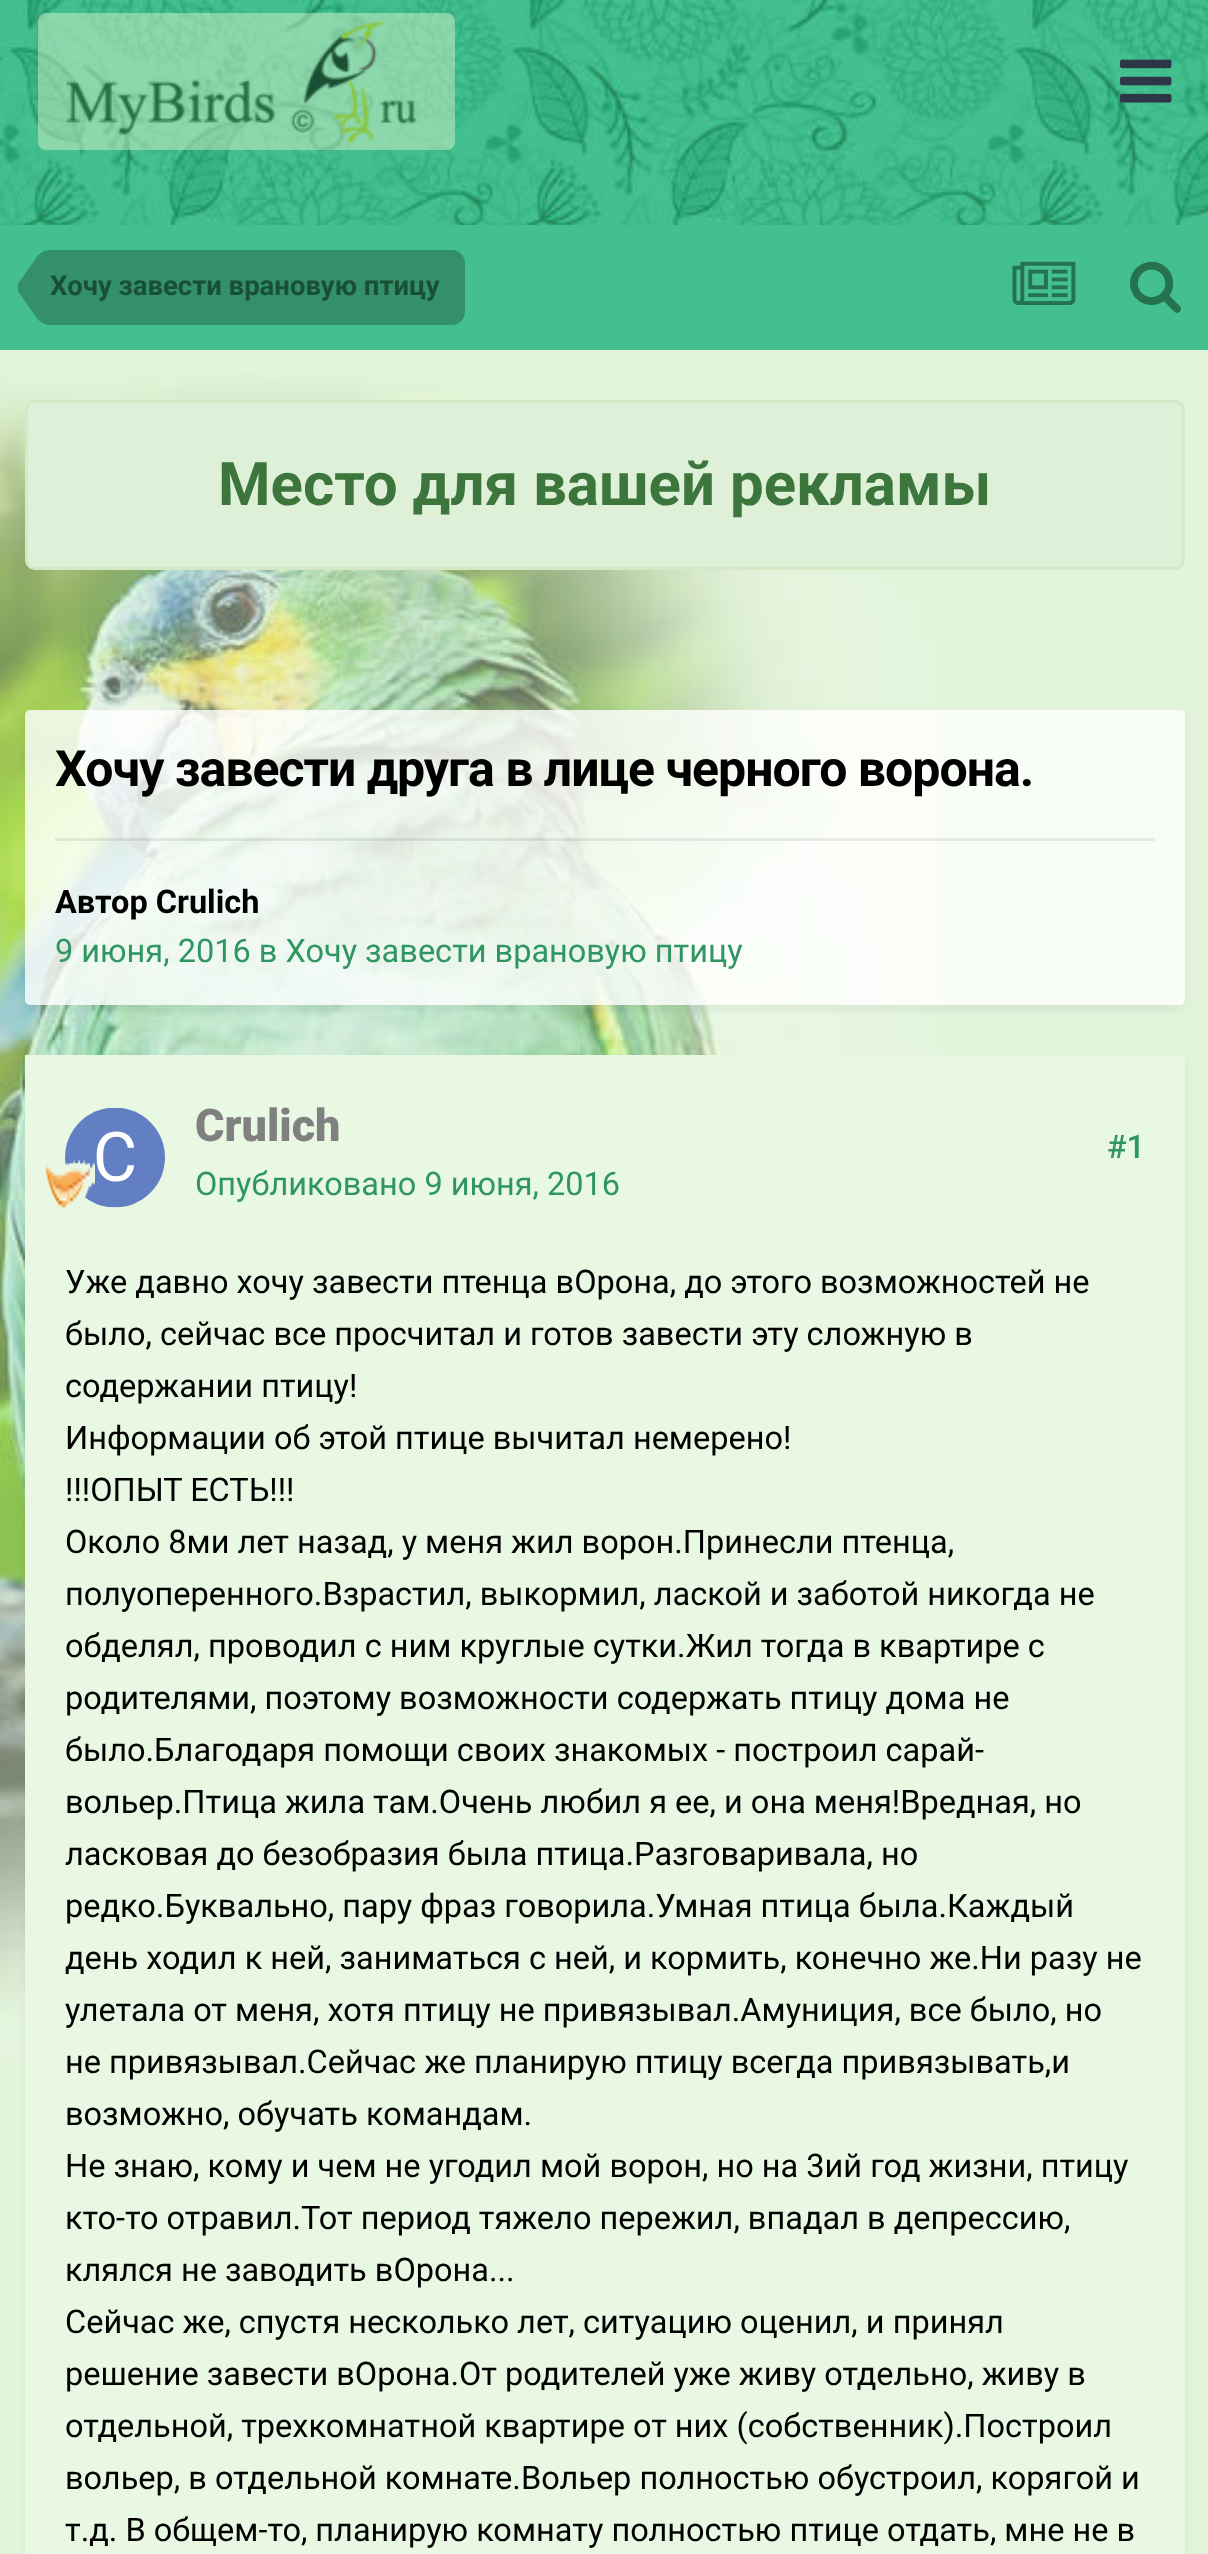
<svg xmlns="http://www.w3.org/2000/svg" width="1208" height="2554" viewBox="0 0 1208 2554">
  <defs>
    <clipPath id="clip1"><path d="M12 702H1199V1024H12ZM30 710H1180C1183 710 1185 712 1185 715V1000C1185 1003 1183 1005 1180 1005H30C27 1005 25 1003 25 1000V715C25 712 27 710 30 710Z" clip-rule="evenodd"/></clipPath>
    <filter id="blur1" x="-50%" y="-200%" width="200%" height="500%"><feGaussianBlur stdDeviation="5"/></filter>
  </defs>
  <rect width="100%" height="100%" fill="#e2f5da"/>
  <image x="0" y="371" width="940" height="1690" href="img1.png"/>
  <image x="0" y="0" width="1208" height="225" href="img2.png"/>
  <rect x="38" y="13" width="417" height="137" rx="8" fill="#d4f1c7" fill-opacity="0.5"/>
  <image x="66" y="21" width="351" height="122" href="img3.png"/>
  <image x="1120" y="59" width="52" height="44" href="img4.png"/>
  <rect x="0" y="225" width="1208" height="125" fill="#44bf90"/>
  <path d="M50 250H452C459 250 465 256 465 263V312C465 319 459 325 452 325H50Z" fill="#338f6c"/>
  <path d="M18.5 292C18 290.5 17.5 289 17.5 287.5H50V325C45.5 325 41 323 37.5 319Z" fill="#338f6c"/>
  <path d="M50 250V287.5H17.5C17.5 286 18 284.5 18.5 283L37.5 256C41 252 45.5 250 50 250Z" fill="#000000" fill-opacity="0.25"/>
  <text x="50" y="295" font-family="Roboto" font-size="27.5" font-weight="bold" fill="#195033">Хочу завести врановую птицу</text>
  <image x="1012" y="261" width="64" height="44" href="img5.png"/>
  <image x="1130" y="261" width="51" height="52" href="img6.png"/>
  <rect x="26.5" y="401.5" width="1157" height="167" rx="8.5" fill="#dff0d8" stroke="#d6e9c6" stroke-width="3"/>
  <text x="218" y="505" font-family="Roboto" font-size="60" font-weight="bold" fill="#3c763d">Место для вашей рекламы</text>
  <g clip-path="url(#clip1)">
    <rect x="28" y="718" width="1155" height="290" rx="2.5" fill="#2d3748" fill-opacity="0.1" filter="url(#blur1)"/>
  </g>
  <rect x="25" y="710" width="1160" height="295" rx="5" fill="#ffffff" fill-opacity="0.8"/>
  <text x="55" y="786" font-family="Roboto" font-size="50" font-weight="bold" letter-spacing="-1" fill="#000000">Хочу завести друга в лице черного ворона.</text>
  <rect x="55" y="838" width="1100" height="3" fill="#000000" fill-opacity="0.08"/>
  <text x="55" y="913" font-family="Roboto" font-size="32.5" font-weight="bold" fill="#000000">Автор Crulich</text>
  <text x="55" y="962" font-family="Roboto" font-size="32.5" fill="#309661">9 июня, 2016 в Хочу завести врановую птицу</text>
  <rect x="28" y="1063" width="1155" height="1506" fill="#2d3748" fill-opacity="0.1" filter="url(#blur1)"/>
  <rect x="25" y="1055" width="1160" height="1499" fill="#e9f8e3"/>
  <image x="65" y="1108" width="100" height="100" href="img7.png"/>
  <image x="45" y="1159" width="50" height="49" href="img8.png"/>
  <text x="195" y="1141" font-family="Roboto" font-size="45" font-weight="900" fill="#808080">Crulich</text>
  <text x="195" y="1195" font-family="Roboto" font-size="32.5" fill="#309661">Опубликовано 9 июня, 2016</text>
  <text x="1107" y="1158" font-family="Roboto" font-size="32.5" font-weight="500" fill="#309661">#1</text>
  <text x="65" y="1293" font-family="Roboto" font-size="32.5" fill="#000000">Уже давно хочу завести птенца вОрона, до этого возможностей не</text>
  <text x="65" y="1345" font-family="Roboto" font-size="32.5" fill="#000000">было, сейчас все просчитал и готов завести эту сложную в</text>
  <text x="65" y="1397" font-family="Roboto" font-size="32.5" fill="#000000">содержании птицу!</text>
  <text x="65" y="1449" font-family="Roboto" font-size="32.5" fill="#000000">Информации об этой птице вычитал немерено!</text>
  <text x="65" y="1501" font-family="Roboto" font-size="32.5" fill="#000000">!!!ОПЫТ ЕСТЬ!!!</text>
  <text x="65" y="1553" font-family="Roboto" font-size="32.5" fill="#000000">Около 8ми лет назад, у меня жил ворон.Принесли птенца,</text>
  <text x="65" y="1605" font-family="Roboto" font-size="32.5" fill="#000000">полуоперенного.Взрастил, выкормил, лаской и заботой никогда не</text>
  <text x="65" y="1657" font-family="Roboto" font-size="32.5" fill="#000000">обделял, проводил с ним круглые сутки.Жил тогда в квартире с</text>
  <text x="65" y="1709" font-family="Roboto" font-size="32.5" fill="#000000">родителями, поэтому возможности содержать птицу дома не</text>
  <text x="65" y="1761" font-family="Roboto" font-size="32.5" fill="#000000">было.Благодаря помощи своих знакомых - построил сарай-</text>
  <text x="65" y="1813" font-family="Roboto" font-size="32.5" fill="#000000">вольер.Птица жила там.Очень любил я ее, и она меня!Вредная, но</text>
  <text x="65" y="1865" font-family="Roboto" font-size="32.5" fill="#000000">ласковая до безобразия была птица.Разговаривала, но</text>
  <text x="65" y="1917" font-family="Roboto" font-size="32.5" fill="#000000">редко.Буквально, пару фраз говорила.Умная птица была.Каждый</text>
  <text x="65" y="1969" font-family="Roboto" font-size="32.5" fill="#000000">день ходил к ней, заниматься с ней, и кормить, конечно же.Ни разу не</text>
  <text x="65" y="2021" font-family="Roboto" font-size="32.5" fill="#000000">улетала от меня, хотя птицу не привязывал.Амуниция, все было, но</text>
  <text x="65" y="2073" font-family="Roboto" font-size="32.5" fill="#000000">не привязывал.Сейчас же планирую птицу всегда привязывать,и</text>
  <text x="65" y="2125" font-family="Roboto" font-size="32.5" fill="#000000">возможно, обучать командам.</text>
  <text x="65" y="2177" font-family="Roboto" font-size="32.5" fill="#000000">Не знаю, кому и чем не угодил мой ворон, но на 3ий год жизни, птицу</text>
  <text x="65" y="2229" font-family="Roboto" font-size="32.5" fill="#000000">кто-то отравил.Тот период тяжело пережил, впадал в депрессию,</text>
  <text x="65" y="2281" font-family="Roboto" font-size="32.5" fill="#000000">клялся не заводить вОрона...</text>
  <text x="65" y="2333" font-family="Roboto" font-size="32.5" fill="#000000">Сейчас же, спустя несколько лет, ситуацию оценил, и принял</text>
  <text x="65" y="2385" font-family="Roboto" font-size="32.5" fill="#000000">решение завести вОрона.От родителей уже живу отдельно, живу в</text>
  <text x="65" y="2437" font-family="Roboto" font-size="32.5" fill="#000000">отдельной, трехкомнатной квартире от них (собственник).Построил</text>
  <text x="65" y="2489" font-family="Roboto" font-size="32.5" fill="#000000">вольер, в отдельной комнате.Вольер полностью обустроил, корягой и</text>
  <text x="65" y="2541" font-family="Roboto" font-size="32.5" fill="#000000">т.д. В общем-то, планирую комнату полностью птице отдать, мне не в</text>
</svg>
